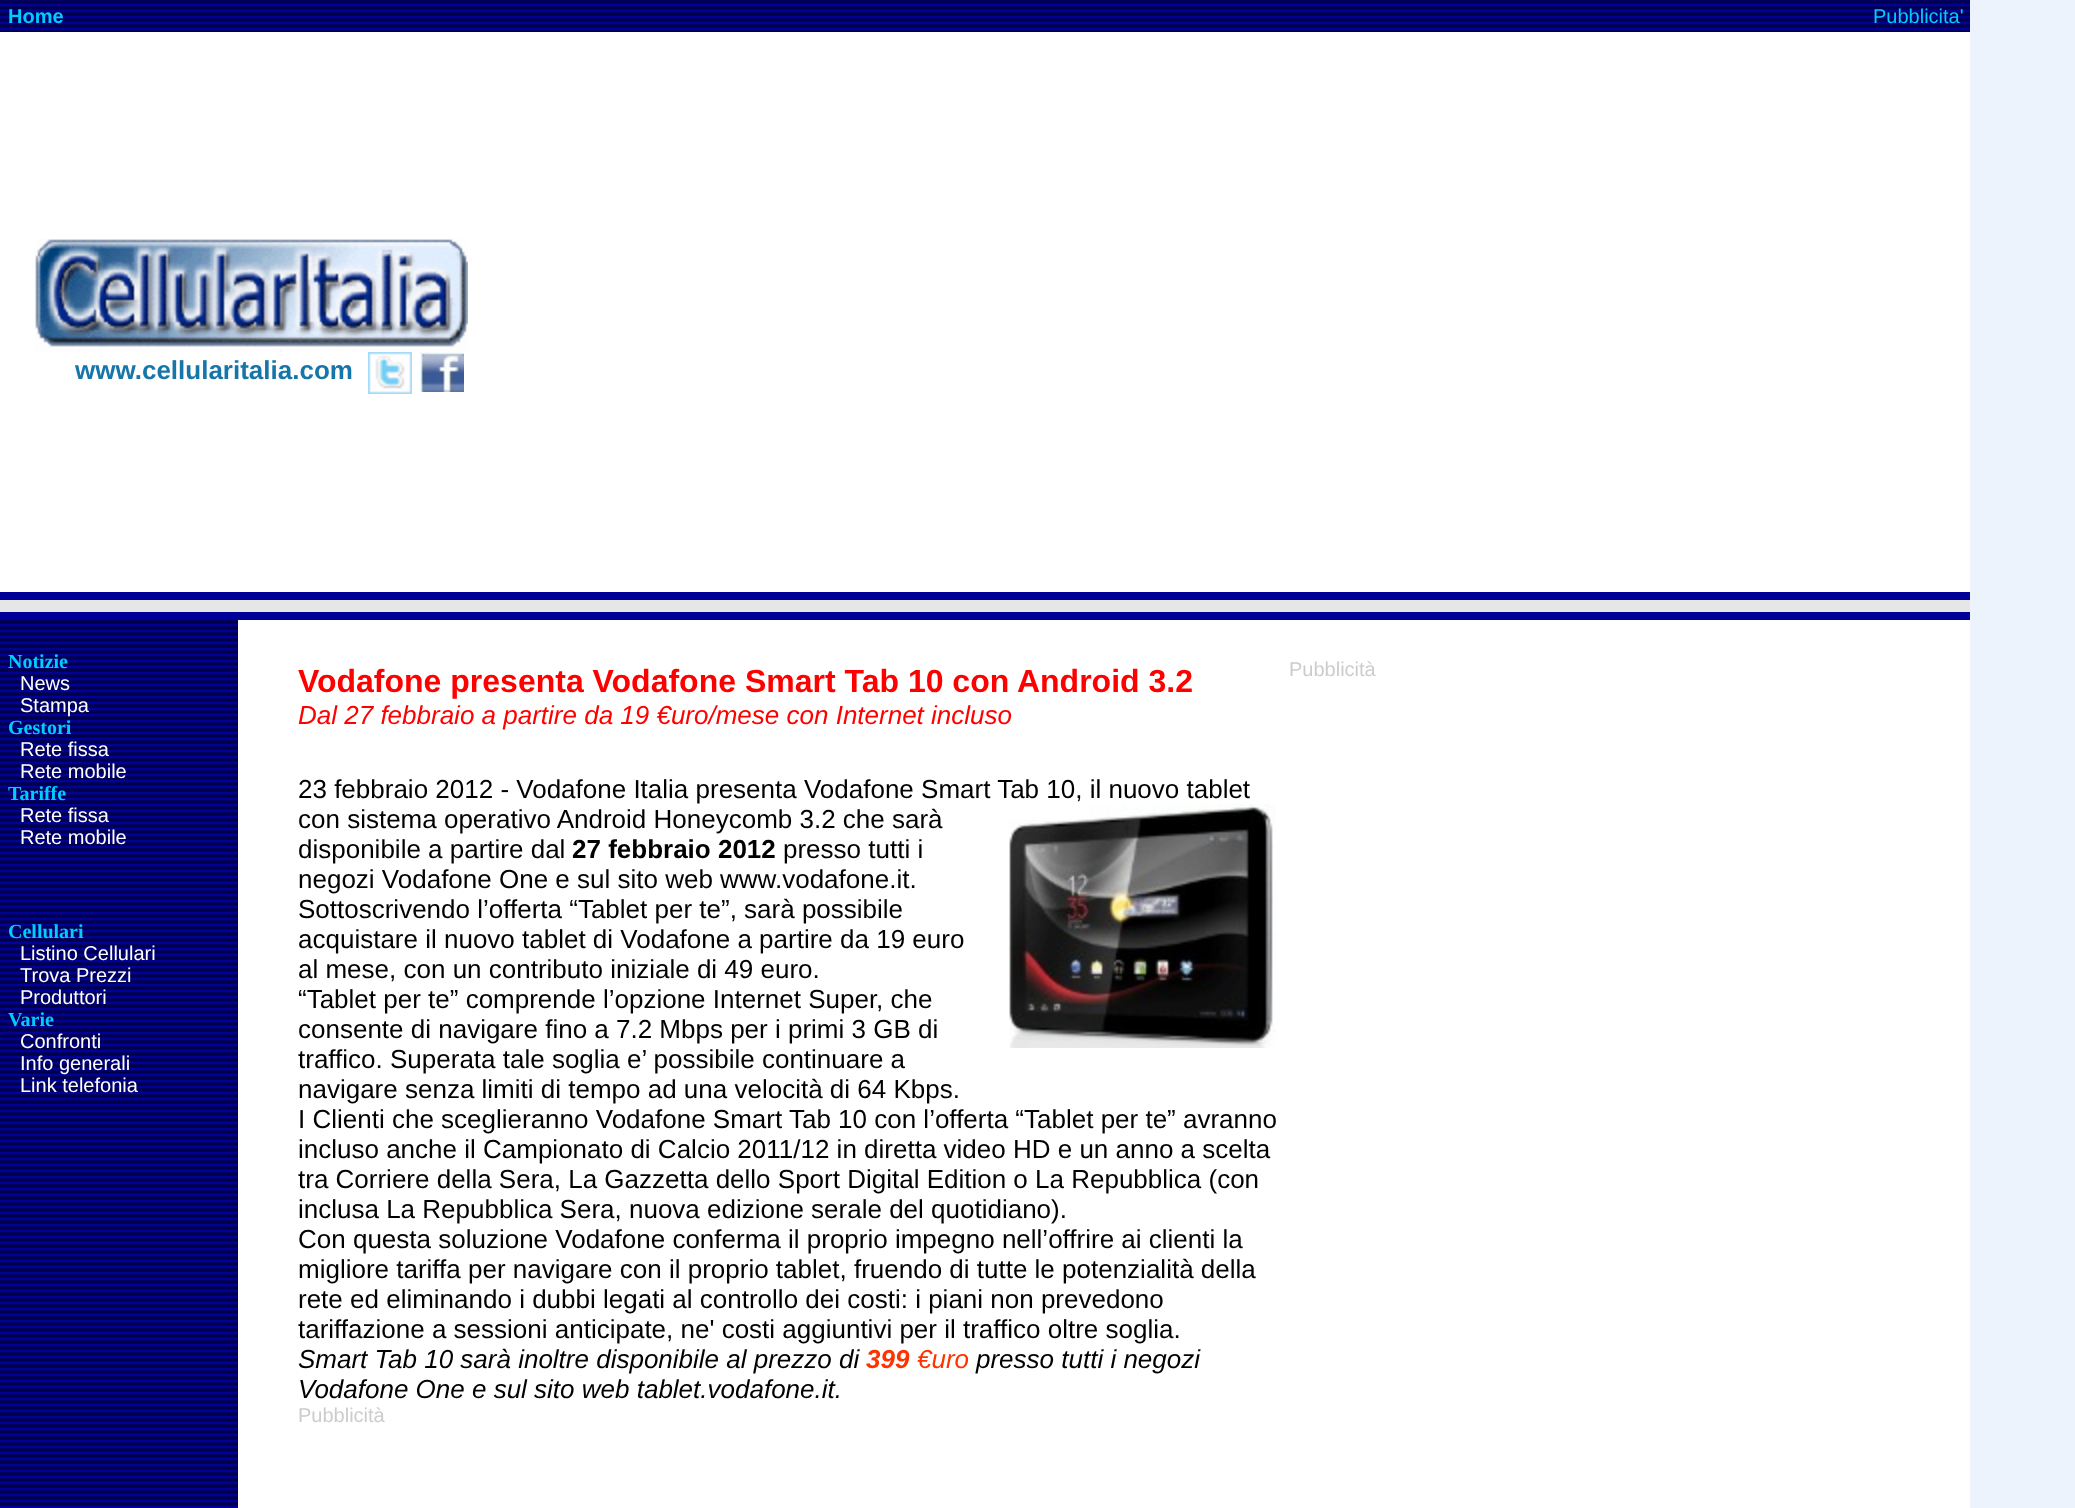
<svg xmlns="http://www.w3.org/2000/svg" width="2075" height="1508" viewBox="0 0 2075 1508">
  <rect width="100%" height="100%" fill="#ecf3fd"/>
  <rect x="0" y="32" width="1970" height="560" fill="#ffffff"/>
  <image x="0" y="0" width="500" height="32" href="img1.png"/>
  <text x="8" y="23" font-family="Liberation Sans" font-size="20" font-weight="bold" fill="#00ccff">Home</text>
  <image x="500" y="0" width="1470" height="32" href="img2.png"/>
  <text x="1873" y="23" font-family="Liberation Sans" font-size="20" fill="#00ccff">Pubblicita'</text>
  <image x="35" y="239" width="433" height="113" href="img3.png"/>
  <text x="75" y="379" font-family="Liberation Sans" font-size="26" font-weight="bold" fill="#1676a9">www.cellularitalia.com</text>
  <image x="368" y="352" width="44" height="42" href="img4.png"/>
  <image x="420" y="352" width="44" height="40" href="img5.png"/>
  <rect x="0" y="592" width="1970" height="8" fill="#000099"/>
  <rect x="0" y="600" width="1970" height="12" fill="#e6e6e6"/>
  <rect x="0" y="612" width="1970" height="8" fill="#000099"/>
  <rect x="238" y="620" width="1732" height="888" fill="#ffffff"/>
  <image x="0" y="620" width="238" height="888" href="img6.png"/>
  <text x="8" y="668" font-family="Liberation Serif" font-size="20" font-weight="bold" fill="#00ccff">Notizie</text>
  <text x="20" y="690" font-family="Liberation Sans" font-size="20" fill="#ffffff">News</text>
  <text x="20" y="712" font-family="Liberation Sans" font-size="20" fill="#ffffff">Stampa</text>
  <text x="8" y="734" font-family="Liberation Serif" font-size="20" font-weight="bold" fill="#00ccff">Gestori</text>
  <text x="20" y="756" font-family="Liberation Sans" font-size="20" fill="#ffffff">Rete fissa</text>
  <text x="20" y="778" font-family="Liberation Sans" font-size="20" fill="#ffffff">Rete mobile</text>
  <text x="8" y="800" font-family="Liberation Serif" font-size="20" font-weight="bold" fill="#00ccff">Tariffe</text>
  <text x="20" y="822" font-family="Liberation Sans" font-size="20" fill="#ffffff">Rete fissa</text>
  <text x="20" y="844" font-family="Liberation Sans" font-size="20" fill="#ffffff">Rete mobile</text>
  <text x="8" y="938" font-family="Liberation Serif" font-size="20" font-weight="bold" fill="#00ccff">Cellulari</text>
  <text x="20" y="960" font-family="Liberation Sans" font-size="20" fill="#ffffff">Listino Cellulari</text>
  <text x="20" y="982" font-family="Liberation Sans" font-size="20" fill="#ffffff">Trova Prezzi</text>
  <text x="20" y="1004" font-family="Liberation Sans" font-size="20" fill="#ffffff">Produttori</text>
  <text x="8" y="1026" font-family="Liberation Serif" font-size="20" font-weight="bold" fill="#00ccff">Varie</text>
  <text x="20" y="1048" font-family="Liberation Sans" font-size="20" fill="#ffffff">Confronti</text>
  <text x="20" y="1070" font-family="Liberation Sans" font-size="20" fill="#ffffff">Info generali</text>
  <text x="20" y="1092" font-family="Liberation Sans" font-size="20" fill="#ffffff">Link telefonia</text>
  <text x="298" y="692" font-family="Liberation Sans" font-size="32" font-weight="bold" fill="#ff0000">Vodafone presenta Vodafone Smart Tab 10 con Android 3.2</text>
  <text x="298" y="724" font-family="Liberation Sans" font-size="26" font-style="italic" fill="#ff0000">Dal 27 febbraio a partire da 19 €uro/mese con Internet incluso</text>
  <text x="298" y="798" font-family="Liberation Sans" font-size="26" fill="#000000">23 febbraio 2012 - Vodafone Italia presenta Vodafone Smart Tab 10, il nuovo tablet</text>
  <text x="298" y="828" font-family="Liberation Sans" font-size="26" fill="#000000">con sistema operativo Android Honeycomb 3.2 che sarà</text>
  <image x="1009" y="804" width="267" height="244" href="img7.png"/>
  <text x="298" y="858" font-family="Liberation Sans" font-size="26" fill="#000000">disponibile a partire dal</text>
  <text x="572" y="858" font-family="Liberation Sans" font-size="26" font-weight="bold" fill="#000000">27 febbraio 2012</text>
  <text x="783" y="858" font-family="Liberation Sans" font-size="26" fill="#000000">presso tutti i</text>
  <text x="298" y="888" font-family="Liberation Sans" font-size="26" fill="#000000">negozi Vodafone One e sul sito web www.vodafone.it.</text>
  <text x="298" y="918" font-family="Liberation Sans" font-size="26" fill="#000000">Sottoscrivendo l’offerta “Tablet per te”, sarà possibile</text>
  <text x="298" y="948" font-family="Liberation Sans" font-size="26" fill="#000000">acquistare il nuovo tablet di Vodafone a partire da 19 euro</text>
  <text x="298" y="978" font-family="Liberation Sans" font-size="26" fill="#000000">al mese, con un contributo iniziale di 49 euro.</text>
  <text x="298" y="1008" font-family="Liberation Sans" font-size="26" fill="#000000">“Tablet per te” comprende l’opzione Internet Super, che</text>
  <text x="298" y="1038" font-family="Liberation Sans" font-size="26" fill="#000000">consente di navigare fino a 7.2 Mbps per i primi 3 GB di</text>
  <text x="298" y="1068" font-family="Liberation Sans" font-size="26" fill="#000000">traffico. Superata tale soglia e’ possibile continuare a</text>
  <text x="298" y="1098" font-family="Liberation Sans" font-size="26" fill="#000000">navigare senza limiti di tempo ad una velocità di 64 Kbps.</text>
  <text x="298" y="1128" font-family="Liberation Sans" font-size="26" fill="#000000">I Clienti che sceglieranno Vodafone Smart Tab 10 con l’offerta “Tablet per te” avranno</text>
  <text x="298" y="1158" font-family="Liberation Sans" font-size="26" fill="#000000">incluso anche il Campionato di Calcio 2011/12 in diretta video HD e un anno a scelta</text>
  <text x="298" y="1188" font-family="Liberation Sans" font-size="26" fill="#000000">tra Corriere della Sera, La Gazzetta dello Sport Digital Edition o La Repubblica (con</text>
  <text x="298" y="1218" font-family="Liberation Sans" font-size="26" fill="#000000">inclusa La Repubblica Sera, nuova edizione serale del quotidiano).</text>
  <text x="298" y="1248" font-family="Liberation Sans" font-size="26" fill="#000000">Con questa soluzione Vodafone conferma il proprio impegno nell’offrire ai clienti la</text>
  <text x="298" y="1278" font-family="Liberation Sans" font-size="26" fill="#000000">migliore tariffa per navigare con il proprio tablet, fruendo di tutte le potenzialità della</text>
  <text x="298" y="1308" font-family="Liberation Sans" font-size="26" fill="#000000">rete ed eliminando i dubbi legati al controllo dei costi: i piani non prevedono</text>
  <text x="298" y="1338" font-family="Liberation Sans" font-size="26" fill="#000000">tariffazione a sessioni anticipate, ne' costi aggiuntivi per il traffico oltre soglia.</text>
  <text x="298" y="1368" font-family="Liberation Sans" font-size="26" font-style="italic" fill="#000000">Smart Tab 10 sarà inoltre disponibile al prezzo di</text>
  <text x="866" y="1368" font-family="Liberation Sans" font-size="26" font-weight="bold" font-style="italic" fill="#ff3300">399</text>
  <text x="917" y="1368" font-family="Liberation Sans" font-size="26" font-style="italic" fill="#ff3300">€uro</text>
  <text x="976" y="1368" font-family="Liberation Sans" font-size="26" font-style="italic" fill="#000000">presso tutti i negozi</text>
  <text x="298" y="1398" font-family="Liberation Sans" font-size="26" font-style="italic" fill="#000000">Vodafone One e sul sito web tablet.vodafone.it.</text>
  <text x="298" y="1422" font-family="Liberation Sans" font-size="20" fill="#cccccc">Pubblicità</text>
  <text x="1289" y="676" font-family="Liberation Sans" font-size="20" fill="#cccccc">Pubblicità</text>
</svg>
